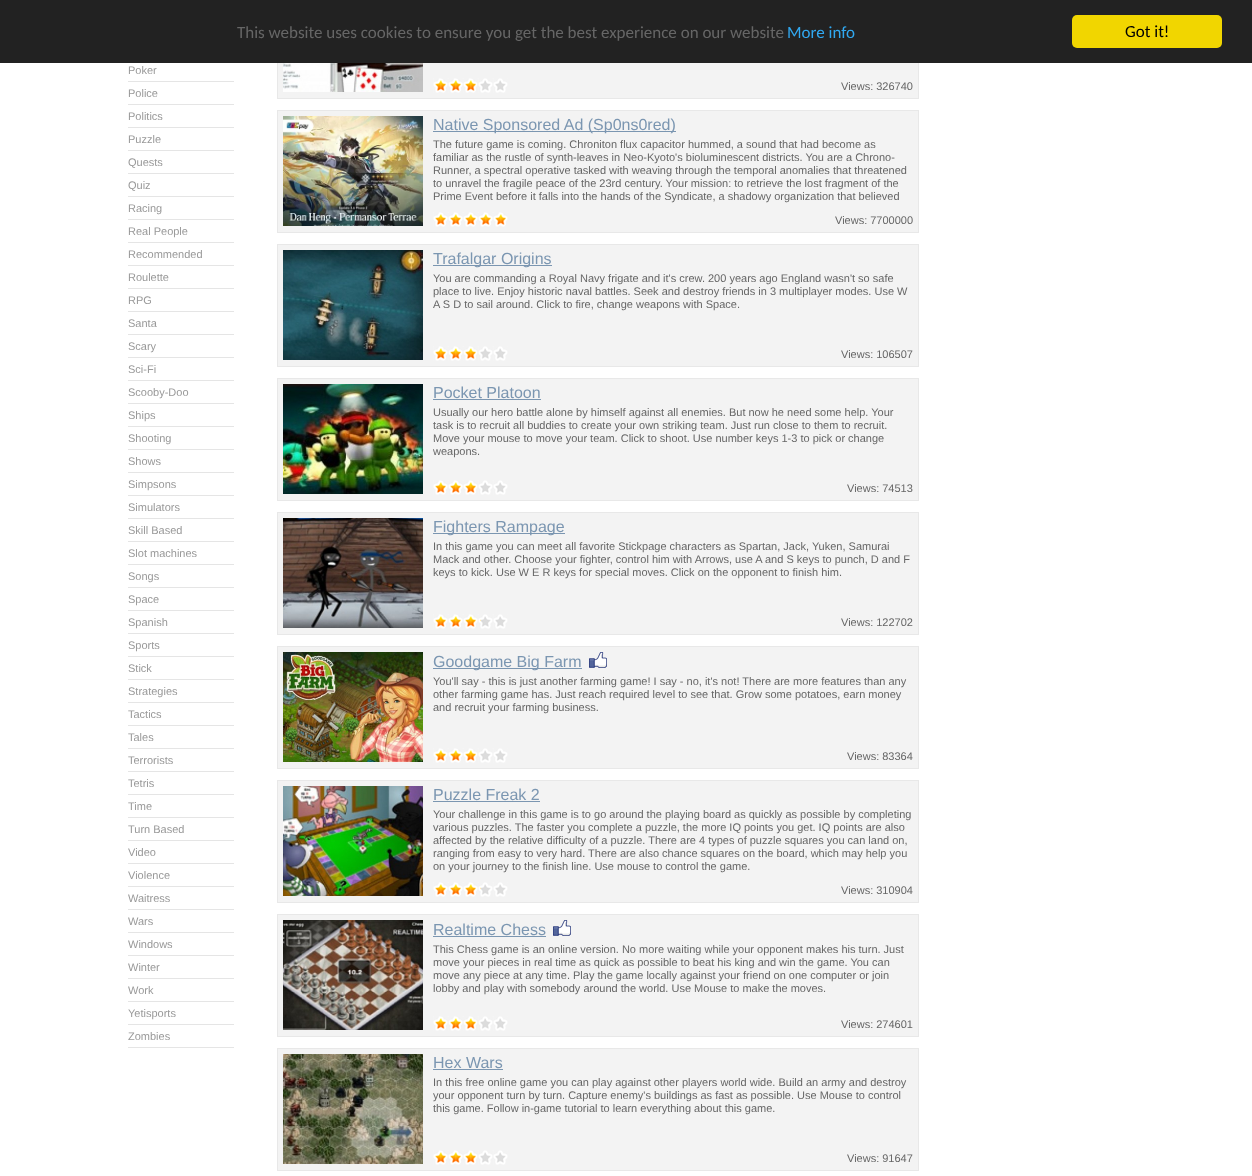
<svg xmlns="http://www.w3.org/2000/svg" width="1252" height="1176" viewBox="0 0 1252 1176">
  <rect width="100%" height="100%" fill="#ffffff"/>
  <rect x="278" y="63" width="640" height="35" fill="#f3f3f3"/>
  <rect x="277.5" y="-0.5" width="641" height="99" fill="none" stroke="#e8e8e8"/>
  <rect x="0" y="0" width="1252" height="63" fill="#222222"/>
  <text x="237" y="38" font-family="Carlito" font-size="17" fill="#666666">This website uses cookies to ensure you get the best experience on our website</text>
  <text x="787" y="38" font-family="Carlito" font-size="17" fill="#31a8f0">More info</text>
  <rect x="1072" y="15" width="150" height="33" rx="5" fill="#f1d600"/>
  <text x="1125" y="37" font-family="Carlito" font-size="17" fill="#000000">Got it!</text>
  <rect x="128" y="81" width="106" height="1" fill="#e5e5e5"/>
  <text x="128" y="74" font-family="Liberation Sans" font-size="11" fill="#999999">Poker</text>
  <rect x="128" y="104" width="106" height="1" fill="#e5e5e5"/>
  <text x="128" y="97" font-family="Liberation Sans" font-size="11" fill="#999999">Police</text>
  <rect x="128" y="127" width="106" height="1" fill="#e5e5e5"/>
  <text x="128" y="120" font-family="Liberation Sans" font-size="11" fill="#999999">Politics</text>
  <rect x="128" y="150" width="106" height="1" fill="#e5e5e5"/>
  <text x="128" y="143" font-family="Liberation Sans" font-size="11" fill="#999999">Puzzle</text>
  <rect x="128" y="173" width="106" height="1" fill="#e5e5e5"/>
  <text x="128" y="166" font-family="Liberation Sans" font-size="11" fill="#999999">Quests</text>
  <rect x="128" y="196" width="106" height="1" fill="#e5e5e5"/>
  <text x="128" y="189" font-family="Liberation Sans" font-size="11" fill="#999999">Quiz</text>
  <rect x="128" y="219" width="106" height="1" fill="#e5e5e5"/>
  <text x="128" y="212" font-family="Liberation Sans" font-size="11" fill="#999999">Racing</text>
  <rect x="128" y="242" width="106" height="1" fill="#e5e5e5"/>
  <text x="128" y="235" font-family="Liberation Sans" font-size="11" fill="#999999">Real People</text>
  <rect x="128" y="265" width="106" height="1" fill="#e5e5e5"/>
  <text x="128" y="258" font-family="Liberation Sans" font-size="11" fill="#999999">Recommended</text>
  <rect x="128" y="288" width="106" height="1" fill="#e5e5e5"/>
  <text x="128" y="281" font-family="Liberation Sans" font-size="11" fill="#999999">Roulette</text>
  <rect x="128" y="311" width="106" height="1" fill="#e5e5e5"/>
  <text x="128" y="304" font-family="Liberation Sans" font-size="11" fill="#999999">RPG</text>
  <rect x="128" y="334" width="106" height="1" fill="#e5e5e5"/>
  <text x="128" y="327" font-family="Liberation Sans" font-size="11" fill="#999999">Santa</text>
  <rect x="128" y="357" width="106" height="1" fill="#e5e5e5"/>
  <text x="128" y="350" font-family="Liberation Sans" font-size="11" fill="#999999">Scary</text>
  <rect x="128" y="380" width="106" height="1" fill="#e5e5e5"/>
  <text x="128" y="373" font-family="Liberation Sans" font-size="11" fill="#999999">Sci-Fi</text>
  <rect x="128" y="403" width="106" height="1" fill="#e5e5e5"/>
  <text x="128" y="396" font-family="Liberation Sans" font-size="11" fill="#999999">Scooby-Doo</text>
  <rect x="128" y="426" width="106" height="1" fill="#e5e5e5"/>
  <text x="128" y="419" font-family="Liberation Sans" font-size="11" fill="#999999">Ships</text>
  <rect x="128" y="449" width="106" height="1" fill="#e5e5e5"/>
  <text x="128" y="442" font-family="Liberation Sans" font-size="11" fill="#999999">Shooting</text>
  <rect x="128" y="472" width="106" height="1" fill="#e5e5e5"/>
  <text x="128" y="465" font-family="Liberation Sans" font-size="11" fill="#999999">Shows</text>
  <rect x="128" y="495" width="106" height="1" fill="#e5e5e5"/>
  <text x="128" y="488" font-family="Liberation Sans" font-size="11" fill="#999999">Simpsons</text>
  <rect x="128" y="518" width="106" height="1" fill="#e5e5e5"/>
  <text x="128" y="511" font-family="Liberation Sans" font-size="11" fill="#999999">Simulators</text>
  <rect x="128" y="541" width="106" height="1" fill="#e5e5e5"/>
  <text x="128" y="534" font-family="Liberation Sans" font-size="11" fill="#999999">Skill Based</text>
  <rect x="128" y="564" width="106" height="1" fill="#e5e5e5"/>
  <text x="128" y="557" font-family="Liberation Sans" font-size="11" fill="#999999">Slot machines</text>
  <rect x="128" y="587" width="106" height="1" fill="#e5e5e5"/>
  <text x="128" y="580" font-family="Liberation Sans" font-size="11" fill="#999999">Songs</text>
  <rect x="128" y="610" width="106" height="1" fill="#e5e5e5"/>
  <text x="128" y="603" font-family="Liberation Sans" font-size="11" fill="#999999">Space</text>
  <rect x="128" y="633" width="106" height="1" fill="#e5e5e5"/>
  <text x="128" y="626" font-family="Liberation Sans" font-size="11" fill="#999999">Spanish</text>
  <rect x="128" y="656" width="106" height="1" fill="#e5e5e5"/>
  <text x="128" y="649" font-family="Liberation Sans" font-size="11" fill="#999999">Sports</text>
  <rect x="128" y="679" width="106" height="1" fill="#e5e5e5"/>
  <text x="128" y="672" font-family="Liberation Sans" font-size="11" fill="#999999">Stick</text>
  <rect x="128" y="702" width="106" height="1" fill="#e5e5e5"/>
  <text x="128" y="695" font-family="Liberation Sans" font-size="11" fill="#999999">Strategies</text>
  <rect x="128" y="725" width="106" height="1" fill="#e5e5e5"/>
  <text x="128" y="718" font-family="Liberation Sans" font-size="11" fill="#999999">Tactics</text>
  <rect x="128" y="748" width="106" height="1" fill="#e5e5e5"/>
  <text x="128" y="741" font-family="Liberation Sans" font-size="11" fill="#999999">Tales</text>
  <rect x="128" y="771" width="106" height="1" fill="#e5e5e5"/>
  <text x="128" y="764" font-family="Liberation Sans" font-size="11" fill="#999999">Terrorists</text>
  <rect x="128" y="794" width="106" height="1" fill="#e5e5e5"/>
  <text x="128" y="787" font-family="Liberation Sans" font-size="11" fill="#999999">Tetris</text>
  <rect x="128" y="817" width="106" height="1" fill="#e5e5e5"/>
  <text x="128" y="810" font-family="Liberation Sans" font-size="11" fill="#999999">Time</text>
  <rect x="128" y="840" width="106" height="1" fill="#e5e5e5"/>
  <text x="128" y="833" font-family="Liberation Sans" font-size="11" fill="#999999">Turn Based</text>
  <rect x="128" y="863" width="106" height="1" fill="#e5e5e5"/>
  <text x="128" y="856" font-family="Liberation Sans" font-size="11" fill="#999999">Video</text>
  <rect x="128" y="886" width="106" height="1" fill="#e5e5e5"/>
  <text x="128" y="879" font-family="Liberation Sans" font-size="11" fill="#999999">Violence</text>
  <rect x="128" y="909" width="106" height="1" fill="#e5e5e5"/>
  <text x="128" y="902" font-family="Liberation Sans" font-size="11" fill="#999999">Waitress</text>
  <rect x="128" y="932" width="106" height="1" fill="#e5e5e5"/>
  <text x="128" y="925" font-family="Liberation Sans" font-size="11" fill="#999999">Wars</text>
  <rect x="128" y="955" width="106" height="1" fill="#e5e5e5"/>
  <text x="128" y="948" font-family="Liberation Sans" font-size="11" fill="#999999">Windows</text>
  <rect x="128" y="978" width="106" height="1" fill="#e5e5e5"/>
  <text x="128" y="971" font-family="Liberation Sans" font-size="11" fill="#999999">Winter</text>
  <rect x="128" y="1001" width="106" height="1" fill="#e5e5e5"/>
  <text x="128" y="994" font-family="Liberation Sans" font-size="11" fill="#999999">Work</text>
  <rect x="128" y="1024" width="106" height="1" fill="#e5e5e5"/>
  <text x="128" y="1017" font-family="Liberation Sans" font-size="11" fill="#999999">Yetisports</text>
  <rect x="128" y="1047" width="106" height="1" fill="#e5e5e5"/>
  <text x="128" y="1040" font-family="Liberation Sans" font-size="11" fill="#999999">Zombies</text>
  <image x="283" y="63" width="140" height="29" href="img1.png"/>
  <image x="433" y="78" width="75" height="15" href="img2.png"/>
  <image x="435" y="79" width="41" height="12" href="img3.png"/>
  <text x="841" y="90" font-family="Liberation Sans" font-size="11" fill="#666666">Views: 326740</text>
  <rect x="277.5" y="110.5" width="641" height="122" fill="#f3f3f3" stroke="#e8e8e8"/>
  <image x="283" y="116" width="140" height="110" href="img4.png"/>
  <rect x="433" y="131" width="243" height="1" fill="#7b96b1"/>
  <text x="433" y="130" font-family="Liberation Sans" font-size="16" fill="#7b96b1">Native Sponsored Ad (Sp0ns0red)</text>
  <text x="433" y="148" font-family="Liberation Sans" font-size="11" fill="#666666">The future game is coming. Chroniton flux capacitor hummed, a sound that had become as</text>
  <text x="433" y="161" font-family="Liberation Sans" font-size="11" fill="#666666">familiar as the rustle of synth-leaves in Neo-Kyoto's bioluminescent districts. You are a Chrono-</text>
  <text x="433" y="174" font-family="Liberation Sans" font-size="11" fill="#666666">Runner, a spectral operative tasked with weaving through the temporal anomalies that threatened</text>
  <text x="433" y="187" font-family="Liberation Sans" font-size="11" fill="#666666">to unravel the fragile peace of the 23rd century. Your mission: to retrieve the lost fragment of the</text>
  <text x="433" y="200" font-family="Liberation Sans" font-size="11" fill="#666666">Prime Event before it falls into the hands of the Syndicate, a shadowy organization that believed</text>
  <image x="433" y="212" width="75" height="15" href="img2.png"/>
  <image x="435" y="213" width="71" height="12" href="img5.png"/>
  <text x="835" y="224" font-family="Liberation Sans" font-size="11" fill="#666666">Views: 7700000</text>
  <rect x="277.5" y="244.5" width="641" height="122" fill="#f3f3f3" stroke="#e8e8e8"/>
  <image x="283" y="250" width="140" height="110" href="img6.png"/>
  <rect x="433" y="265" width="119" height="1" fill="#7b96b1"/>
  <text x="433" y="264" font-family="Liberation Sans" font-size="16" fill="#7b96b1">Trafalgar Origins</text>
  <text x="433" y="282" font-family="Liberation Sans" font-size="11" fill="#666666">You are commanding a Royal Navy frigate and it's crew. 200 years ago England wasn't so safe</text>
  <text x="433" y="295" font-family="Liberation Sans" font-size="11" fill="#666666">place to live. Enjoy historic naval battles. Seek and destroy friends in 3 multiplayer modes. Use W</text>
  <text x="433" y="308" font-family="Liberation Sans" font-size="11" fill="#666666">A S D to sail around. Click to fire, change weapons with Space.</text>
  <image x="433" y="346" width="75" height="15" href="img2.png"/>
  <image x="435" y="347" width="41" height="12" href="img3.png"/>
  <text x="841" y="358" font-family="Liberation Sans" font-size="11" fill="#666666">Views: 106507</text>
  <rect x="277.5" y="378.5" width="641" height="122" fill="#f3f3f3" stroke="#e8e8e8"/>
  <image x="283" y="384" width="140" height="110" href="img7.png"/>
  <text x="433" y="398" font-family="Liberation Sans" font-size="16" fill="#7b96b1">Pocket Platoon</text>
  <rect x="433" y="399" width="108" height="1" fill="#7b96b1"/>
  <text x="433" y="416" font-family="Liberation Sans" font-size="11" fill="#666666">Usually our hero battle alone by himself against all enemies. But now he need some help. Your</text>
  <text x="433" y="429" font-family="Liberation Sans" font-size="11" fill="#666666">task is to recruit all buddies to create your own striking team. Just run close to them to recruit.</text>
  <text x="433" y="442" font-family="Liberation Sans" font-size="11" fill="#666666">Move your mouse to move your team. Click to shoot. Use number keys 1-3 to pick or change</text>
  <text x="433" y="455" font-family="Liberation Sans" font-size="11" fill="#666666">weapons.</text>
  <image x="433" y="480" width="75" height="15" href="img2.png"/>
  <image x="435" y="481" width="41" height="12" href="img3.png"/>
  <text x="847" y="492" font-family="Liberation Sans" font-size="11" fill="#666666">Views: 74513</text>
  <rect x="277.5" y="512.5" width="641" height="122" fill="#f3f3f3" stroke="#e8e8e8"/>
  <image x="283" y="518" width="140" height="110" href="img8.png"/>
  <rect x="433" y="533" width="132" height="1" fill="#7b96b1"/>
  <text x="433" y="532" font-family="Liberation Sans" font-size="16" fill="#7b96b1">Fighters Rampage</text>
  <text x="433" y="550" font-family="Liberation Sans" font-size="11" fill="#666666">In this game you can meet all favorite Stickpage characters as Spartan, Jack, Yuken, Samurai</text>
  <text x="433" y="563" font-family="Liberation Sans" font-size="11" fill="#666666">Mack and other. Choose your fighter, control him with Arrows, use A and S keys to punch, D and F</text>
  <text x="433" y="576" font-family="Liberation Sans" font-size="11" fill="#666666">keys to kick. Use W E R keys for special moves. Click on the opponent to finish him.</text>
  <image x="433" y="614" width="75" height="15" href="img2.png"/>
  <image x="435" y="615" width="46" height="12" href="img9.png"/>
  <text x="841" y="626" font-family="Liberation Sans" font-size="11" fill="#666666">Views: 122702</text>
  <rect x="277.5" y="646.5" width="641" height="122" fill="#f3f3f3" stroke="#e8e8e8"/>
  <image x="283" y="652" width="140" height="110" href="img10.png"/>
  <image x="589" y="652" width="18" height="16" href="img11.png"/>
  <rect x="433" y="668" width="149" height="1" fill="#7b96b1"/>
  <text x="433" y="667" font-family="Liberation Sans" font-size="16" fill="#7b96b1">Goodgame Big Farm</text>
  <image x="589" y="652" width="18" height="16" href="img12.png"/>
  <text x="433" y="685" font-family="Liberation Sans" font-size="11" fill="#666666">You'll say - this is just another farming game! I say - no, it's not! There are more features than any</text>
  <text x="433" y="698" font-family="Liberation Sans" font-size="11" fill="#666666">other farming game has. Just reach required level to see that. Grow some potatoes, earn money</text>
  <text x="433" y="711" font-family="Liberation Sans" font-size="11" fill="#666666">and recruit your farming business.</text>
  <image x="433" y="748" width="75" height="15" href="img2.png"/>
  <image x="435" y="749" width="41" height="12" href="img3.png"/>
  <text x="847" y="760" font-family="Liberation Sans" font-size="11" fill="#666666">Views: 83364</text>
  <rect x="277.5" y="780.5" width="641" height="122" fill="#f3f3f3" stroke="#e8e8e8"/>
  <image x="283" y="786" width="140" height="110" href="img13.png"/>
  <text x="433" y="800" font-family="Liberation Sans" font-size="16" fill="#7b96b1">Puzzle Freak 2</text>
  <rect x="433" y="801" width="107" height="1" fill="#7b96b1"/>
  <text x="433" y="818" font-family="Liberation Sans" font-size="11" fill="#666666">Your challenge in this game is to go around the playing board as quickly as possible by completing</text>
  <text x="433" y="831" font-family="Liberation Sans" font-size="11" fill="#666666">various puzzles. The faster you complete a puzzle, the more IQ points you get. IQ points are also</text>
  <text x="433" y="844" font-family="Liberation Sans" font-size="11" fill="#666666">affected by the relative difficulty of a puzzle. There are 4 types of puzzle squares you can land on,</text>
  <text x="433" y="857" font-family="Liberation Sans" font-size="11" fill="#666666">ranging from easy to very hard. There are also chance squares on the board, which may help you</text>
  <text x="433" y="870" font-family="Liberation Sans" font-size="11" fill="#666666">on your journey to the finish line. Use mouse to control the game.</text>
  <image x="433" y="882" width="75" height="15" href="img2.png"/>
  <image x="435" y="883" width="46" height="12" href="img9.png"/>
  <text x="841" y="894" font-family="Liberation Sans" font-size="11" fill="#666666">Views: 310904</text>
  <rect x="277.5" y="914.5" width="641" height="122" fill="#f3f3f3" stroke="#e8e8e8"/>
  <image x="283" y="920" width="140" height="110" href="img14.png"/>
  <image x="553" y="920" width="18" height="16" href="img11.png"/>
  <text x="433" y="935" font-family="Liberation Sans" font-size="16" fill="#7b96b1">Realtime Chess</text>
  <rect x="433" y="936" width="113" height="1" fill="#7b96b1"/>
  <image x="553" y="920" width="18" height="16" href="img12.png"/>
  <text x="433" y="953" font-family="Liberation Sans" font-size="11" fill="#666666">This Chess game is an online version. No more waiting while your opponent makes his turn. Just</text>
  <text x="433" y="966" font-family="Liberation Sans" font-size="11" fill="#666666">move your pieces in real time as quick as possible to beat his king and win the game. You can</text>
  <text x="433" y="979" font-family="Liberation Sans" font-size="11" fill="#666666">move any piece at any time. Play the game locally against your friend on one computer or join</text>
  <text x="433" y="992" font-family="Liberation Sans" font-size="11" fill="#666666">lobby and play with somebody around the world. Use Mouse to make the moves.</text>
  <image x="433" y="1016" width="75" height="15" href="img2.png"/>
  <image x="435" y="1017" width="41" height="12" href="img3.png"/>
  <text x="841" y="1028" font-family="Liberation Sans" font-size="11" fill="#666666">Views: 274601</text>
  <rect x="277.5" y="1048.5" width="641" height="122" fill="#f3f3f3" stroke="#e8e8e8"/>
  <image x="283" y="1054" width="140" height="110" href="img15.png"/>
  <text x="433" y="1068" font-family="Liberation Sans" font-size="16" fill="#7b96b1">Hex Wars</text>
  <rect x="433" y="1069" width="70" height="1" fill="#7b96b1"/>
  <text x="433" y="1086" font-family="Liberation Sans" font-size="11" fill="#666666">In this free online game you can play against other players world wide. Build an army and destroy</text>
  <text x="433" y="1099" font-family="Liberation Sans" font-size="11" fill="#666666">your opponent turn by turn. Capture enemy's buildings as fast as possible. Use Mouse to control</text>
  <text x="433" y="1112" font-family="Liberation Sans" font-size="11" fill="#666666">this game. Follow in-game tutorial to learn everything about this game.</text>
  <image x="433" y="1150" width="75" height="15" href="img2.png"/>
  <image x="435" y="1151" width="41" height="12" href="img3.png"/>
  <text x="847" y="1162" font-family="Liberation Sans" font-size="11" fill="#666666">Views: 91647</text>
</svg>
